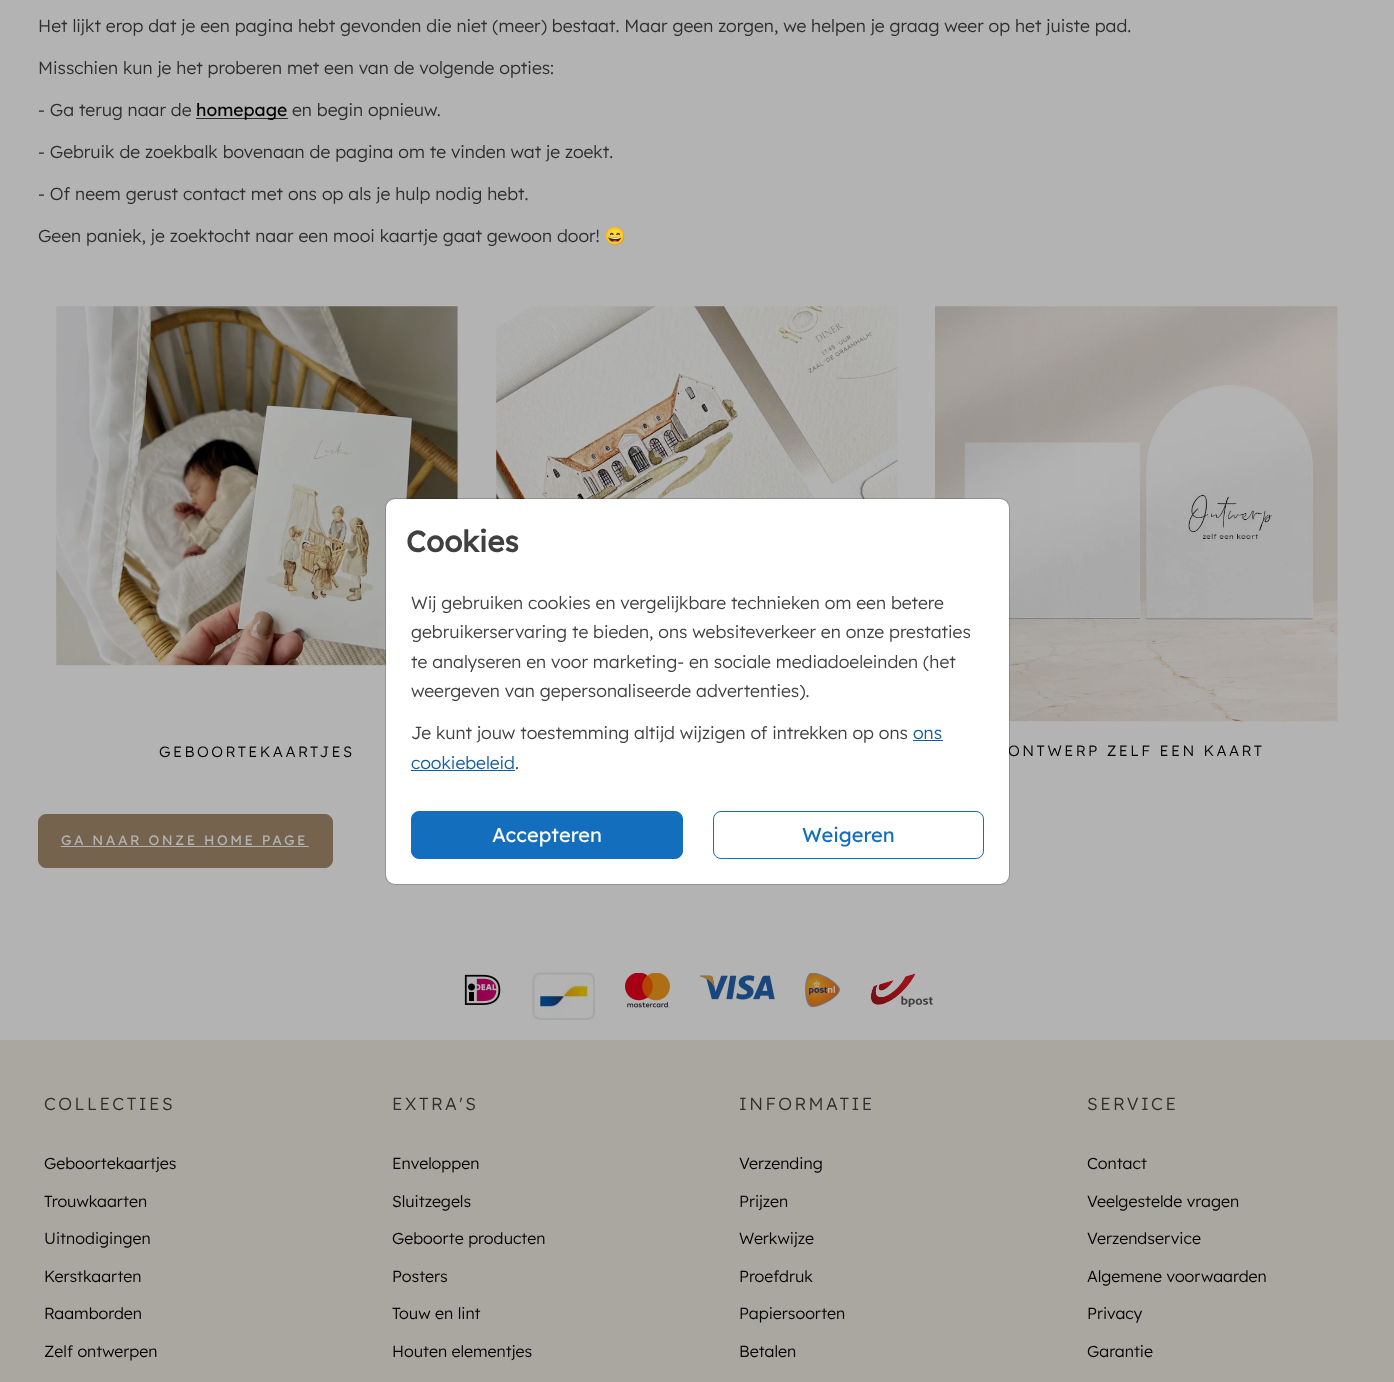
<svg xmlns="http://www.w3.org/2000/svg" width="1394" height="1382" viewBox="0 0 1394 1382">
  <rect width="100%" height="100%" fill="#b3b3b3"/>
  <text x="38" y="32" font-family="Lexend" font-size="17.5" font-weight="300" fill="#2d2d2d">Het lijkt erop dat je een pagina hebt gevonden die niet (meer) bestaat. Maar geen zorgen, we helpen je graag weer op het juiste pad.</text>
  <text x="38" y="74" font-family="Lexend" font-size="17.5" font-weight="300" fill="#2d2d2d">Misschien kun je het proberen met een van de volgende opties:</text>
  <text x="38" y="116" font-family="Lexend" font-size="17.5" font-weight="300" fill="#2d2d2d">- Ga terug naar de</text>
  <rect x="196" y="118" width="92" height="1" fill="#2d2d2d"/>
  <text x="196" y="116" font-family="Lexend" font-size="17.5" fill="#000000">homepage</text>
  <text x="292" y="116" font-family="Lexend" font-size="17.5" font-weight="300" fill="#2d2d2d">en begin opnieuw.</text>
  <text x="38" y="158" font-family="Lexend" font-size="17.5" font-weight="300" fill="#2d2d2d">- Gebruik de zoekbalk bovenaan de pagina om te vinden wat je zoekt.</text>
  <text x="38" y="200" font-family="Lexend" font-size="17.5" font-weight="300" fill="#2d2d2d">- Of neem gerust contact met ons op als je hulp nodig hebt.</text>
  <text x="38" y="242" font-family="Lexend" font-size="17.5" font-weight="300" fill="#2d2d2d">Geen paniek, je zoektocht naar een mooi kaartje gaat gewoon door!</text>
  <text x="604" y="242" font-family="Noto Color Emoji" font-size="17.5" fill="#2d2d2d">😄</text>
  <image x="496" y="306" width="402" height="193" href="img1.png"/>
  <image x="56" y="306" width="403" height="361" href="img2.png"/>
  <text x="159" y="757" font-family="Lexend" font-size="15" font-weight="300" letter-spacing="2.5" fill="#000000">GEBOORTEKAARTJES</text>
  <image x="935" y="306" width="403" height="416" href="img3.png"/>
  <text x="1008" y="756" font-family="Lexend" font-size="15" font-weight="300" letter-spacing="2.5" fill="#000000">ONTWERP ZELF EEN KAART</text>
  <rect x="38.5" y="814.5" width="294" height="53" rx="7.5" fill="#76634e" stroke="#76634e"/>
  <text x="61" y="845" font-family="Lexend" font-size="13.75" letter-spacing="2.5" fill="#b3b3b3">GA NAAR ONZE HOME PAGE</text>
  <rect x="61" y="846" width="248" height="1" fill="#b3b3b3"/>
  <rect x="386" y="499" width="623" height="385" rx="9" fill="#ffffff"/>
  <rect x="385.5" y="498.5" width="624" height="386" rx="9.5" fill="none" stroke="#000000" stroke-opacity="0.18"/>
  <text x="406" y="552" font-family="Lexend" font-size="29.5" font-weight="bold" fill="#404040">Cookies</text>
  <text x="411" y="609" font-family="Lexend" font-size="17.5" font-weight="300" fill="#404040">Wij gebruiken cookies en vergelijkbare technieken om een betere</text>
  <text x="411" y="638" font-family="Lexend" font-size="17.5" font-weight="300" fill="#404040">gebruikerservaring te bieden, ons websiteverkeer en onze prestaties</text>
  <text x="411" y="668" font-family="Lexend" font-size="17.5" font-weight="300" fill="#404040">te analyseren en voor marketing- en sociale mediadoeleinden (het</text>
  <text x="411" y="697" font-family="Lexend" font-size="17.5" font-weight="300" fill="#404040">weergeven van gepersonaliseerde advertenties).</text>
  <text x="411" y="739" font-family="Lexend" font-size="17.5" font-weight="300" fill="#404040">Je kunt jouw toestemming altijd wijzigen of intrekken op ons</text>
  <text x="913" y="739" font-family="Lexend" font-size="17.5" font-weight="300" fill="#115ea2">ons</text>
  <rect x="913" y="740" width="30" height="1" fill="#115ea2"/>
  <text x="411" y="769" font-family="Lexend" font-size="17.5" font-weight="300" fill="#115ea2">cookiebeleid</text>
  <rect x="411" y="770" width="104" height="1" fill="#115ea2"/>
  <text x="515" y="769" font-family="Lexend" font-size="17.5" font-weight="300" fill="#404040">.</text>
  <rect x="411.5" y="811.5" width="271" height="47" rx="7.5" fill="#146ebe" stroke="#146ebe"/>
  <text x="492" y="842" font-family="Lexend" font-size="20" fill="#ffffff">Accepteren</text>
  <rect x="713.5" y="811.5" width="270" height="47" rx="7.5" fill="none" stroke="#146ebe"/>
  <text x="802" y="842" font-family="Lexend" font-size="20" fill="#146ebe">Weigeren</text>
  <image x="464" y="974" width="37" height="31" href="img4.png"/>
  <image x="532" y="972" width="63" height="48" href="img5.png"/>
  <image x="625" y="973" width="45" height="35" href="img6.png"/>
  <image x="700" y="975" width="75" height="25" href="img7.png"/>
  <image x="805" y="973" width="35" height="35" href="img8.png"/>
  <image x="871" y="973" width="62" height="34" href="img9.png"/>
  <rect x="0" y="1040" width="1394" height="342" fill="#aaa7a1"/>
  <text x="44" y="1110" font-family="Lexend" font-size="17.5" font-weight="300" letter-spacing="2.5" fill="#2d2d2d">COLLECTIES</text>
  <text x="44" y="1169" font-family="Lexend" font-size="16" font-weight="300" fill="#000000">Geboortekaartjes</text>
  <text x="44" y="1207" font-family="Lexend" font-size="16" font-weight="300" fill="#000000">Trouwkaarten</text>
  <text x="44" y="1244" font-family="Lexend" font-size="16" font-weight="300" fill="#000000">Uitnodigingen</text>
  <text x="44" y="1282" font-family="Lexend" font-size="16" font-weight="300" fill="#000000">Kerstkaarten</text>
  <text x="44" y="1319" font-family="Lexend" font-size="16" font-weight="300" fill="#000000">Raamborden</text>
  <text x="44" y="1357" font-family="Lexend" font-size="16" font-weight="300" fill="#000000">Zelf ontwerpen</text>
  <text x="392" y="1110" font-family="Lexend" font-size="17.5" font-weight="300" letter-spacing="2.5" fill="#2d2d2d">EXTRA'S</text>
  <text x="392" y="1169" font-family="Lexend" font-size="16" font-weight="300" fill="#000000">Enveloppen</text>
  <text x="392" y="1207" font-family="Lexend" font-size="16" font-weight="300" fill="#000000">Sluitzegels</text>
  <text x="392" y="1244" font-family="Lexend" font-size="16" font-weight="300" fill="#000000">Geboorte producten</text>
  <text x="392" y="1282" font-family="Lexend" font-size="16" font-weight="300" fill="#000000">Posters</text>
  <text x="392" y="1319" font-family="Lexend" font-size="16" font-weight="300" fill="#000000">Touw en lint</text>
  <text x="392" y="1357" font-family="Lexend" font-size="16" font-weight="300" fill="#000000">Houten elementjes</text>
  <text x="739" y="1110" font-family="Lexend" font-size="17.5" font-weight="300" letter-spacing="2.5" fill="#2d2d2d">INFORMATIE</text>
  <text x="739" y="1169" font-family="Lexend" font-size="16" font-weight="300" fill="#000000">Verzending</text>
  <text x="739" y="1207" font-family="Lexend" font-size="16" font-weight="300" fill="#000000">Prijzen</text>
  <text x="739" y="1244" font-family="Lexend" font-size="16" font-weight="300" fill="#000000">Werkwijze</text>
  <text x="739" y="1282" font-family="Lexend" font-size="16" font-weight="300" fill="#000000">Proefdruk</text>
  <text x="739" y="1319" font-family="Lexend" font-size="16" font-weight="300" fill="#000000">Papiersoorten</text>
  <text x="739" y="1357" font-family="Lexend" font-size="16" font-weight="300" fill="#000000">Betalen</text>
  <text x="1087" y="1110" font-family="Lexend" font-size="17.5" font-weight="300" letter-spacing="2.5" fill="#2d2d2d">SERVICE</text>
  <text x="1087" y="1169" font-family="Lexend" font-size="16" font-weight="300" fill="#000000">Contact</text>
  <text x="1087" y="1207" font-family="Lexend" font-size="16" font-weight="300" fill="#000000">Veelgestelde vragen</text>
  <text x="1087" y="1244" font-family="Lexend" font-size="16" font-weight="300" fill="#000000">Verzendservice</text>
  <text x="1087" y="1282" font-family="Lexend" font-size="16" font-weight="300" fill="#000000">Algemene voorwaarden</text>
  <text x="1087" y="1319" font-family="Lexend" font-size="16" font-weight="300" fill="#000000">Privacy</text>
  <text x="1087" y="1357" font-family="Lexend" font-size="16" font-weight="300" fill="#000000">Garantie</text>
</svg>
